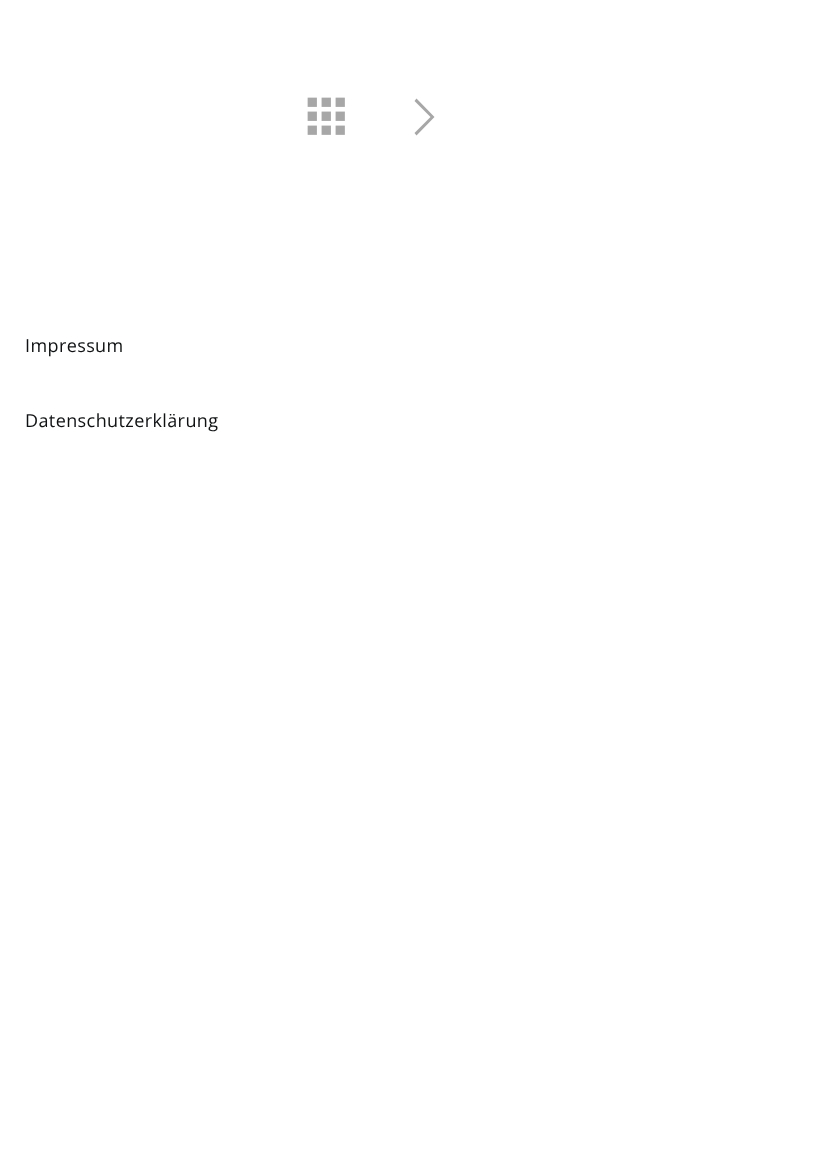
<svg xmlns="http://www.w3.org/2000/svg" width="832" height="1150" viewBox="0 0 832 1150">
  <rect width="100%" height="100%" fill="#ffffff"/>
  <image x="307" y="97" width="38" height="38" href="img1.png"/>
  <path d="M434.5 117L416.5 98.5L414.5 101L430.5 117L414.5 133L416.5 135.5Z" fill="#a7a7a7"/>
  <text x="25" y="352" font-family="Open Sans" font-size="18" letter-spacing="0.4" fill="#0f1112">Impressum</text>
  <text x="25" y="427" font-family="Open Sans" font-size="18" letter-spacing="0.4" fill="#0f1112">Datenschutzerklärung</text>
</svg>
